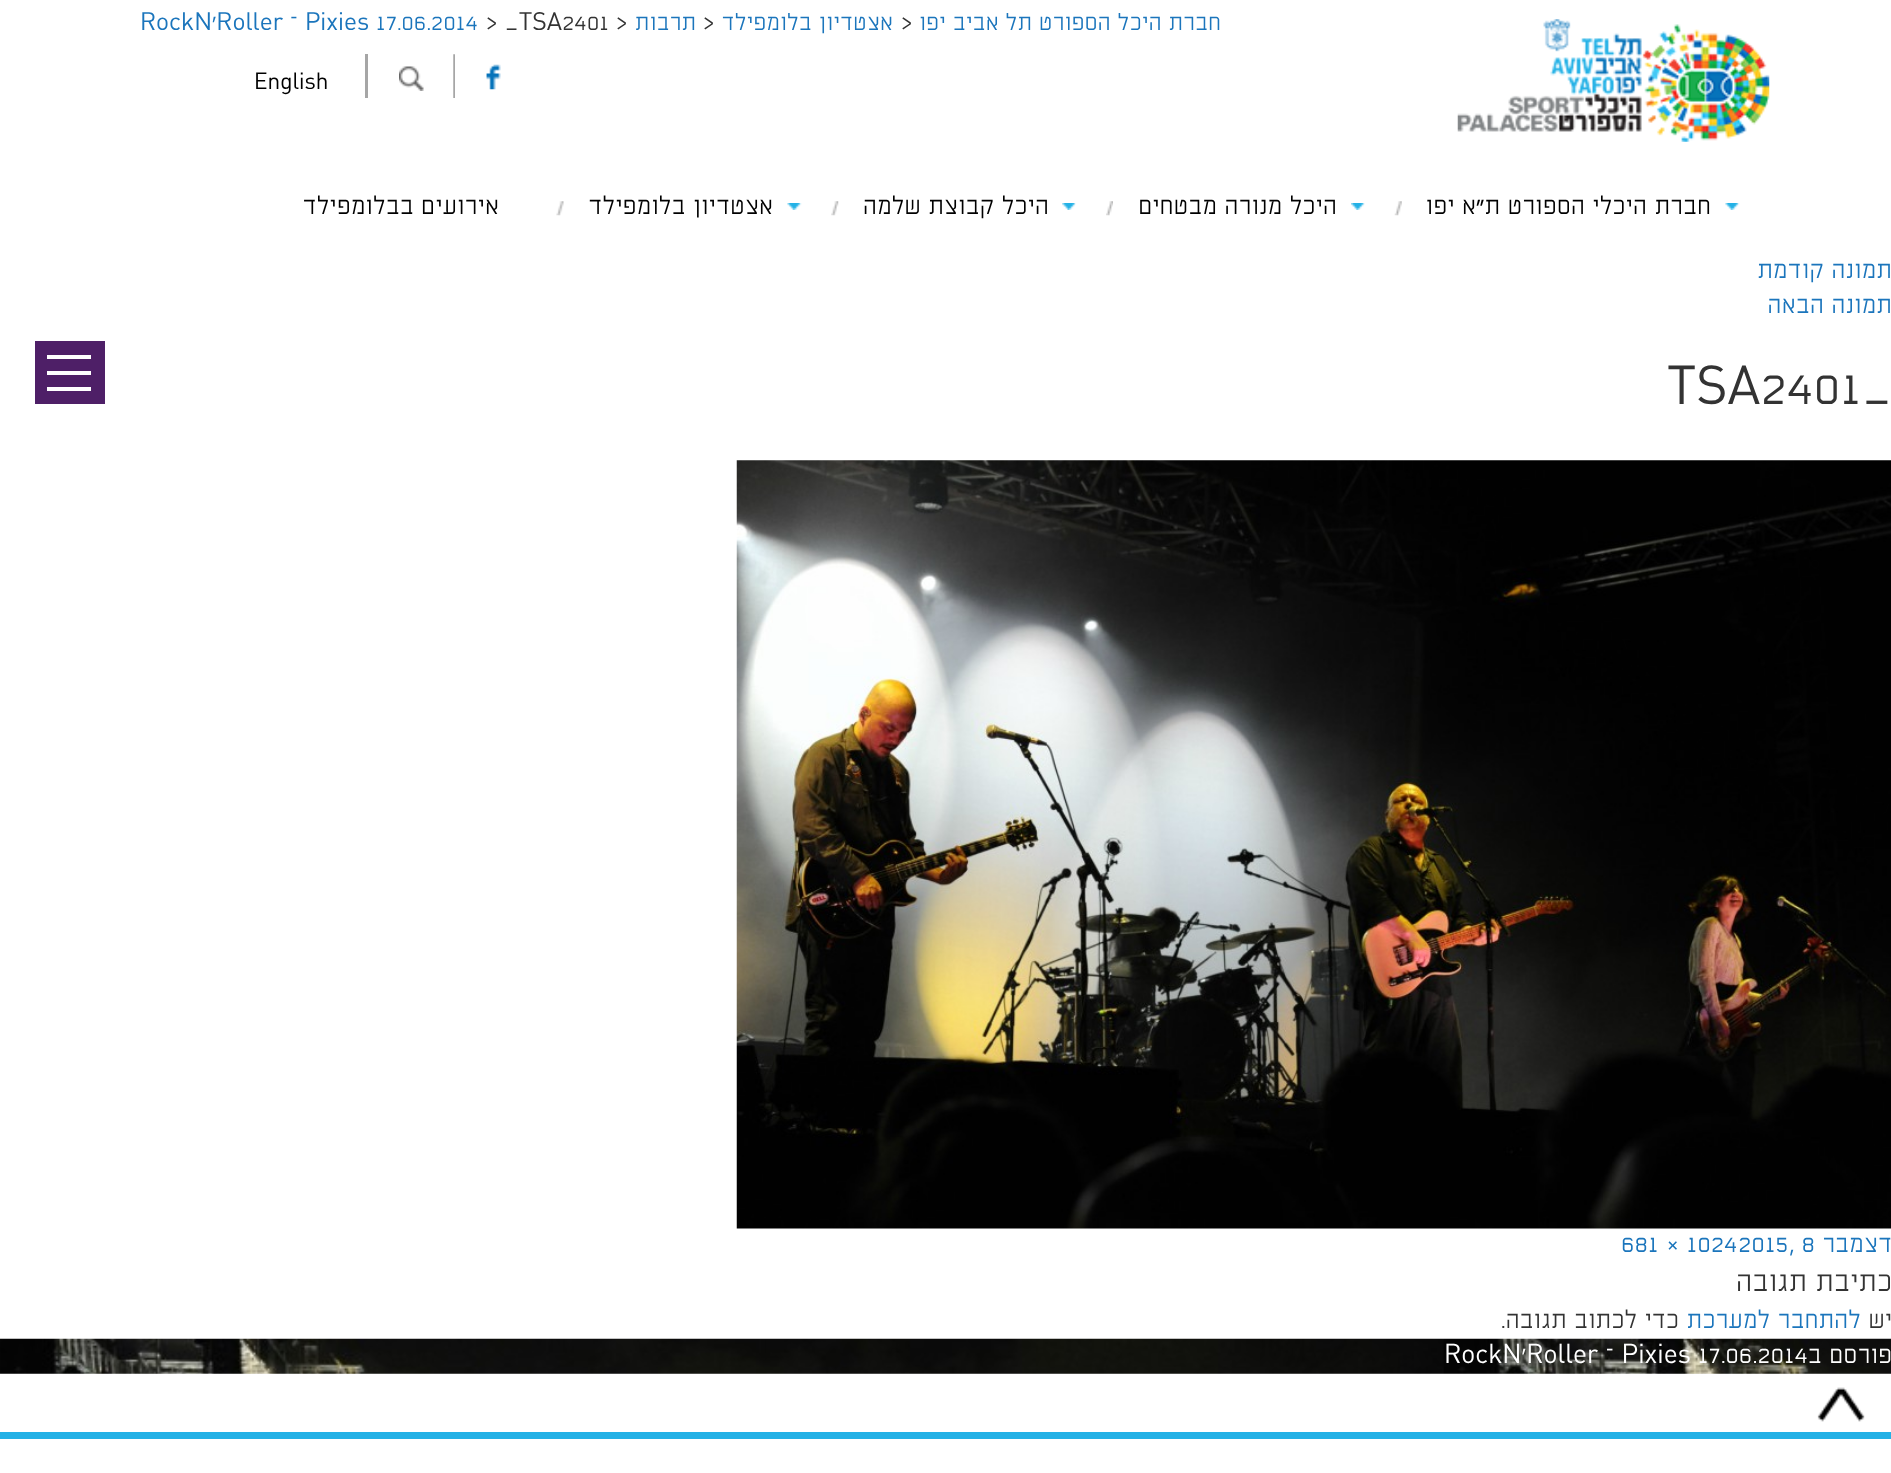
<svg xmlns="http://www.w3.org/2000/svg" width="1891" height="1473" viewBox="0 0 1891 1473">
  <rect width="100%" height="100%" fill="#ffffff"/>
  <image x="1457" y="19" width="313" height="123" href="img1.png"/>
  <text x="1221" y="30" font-family="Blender" font-size="22.75" font-weight="300" font-style="italic" direction="rtl" fill="#1b75bc">חברת היכל הספורט תל אביב יפו</text>
  <text x="900" y="30" font-family="Blender" font-size="22.75" font-weight="300" font-style="italic" fill="#333333">&gt;</text>
  <text x="893" y="30" font-family="Blender" font-size="22.75" font-weight="300" font-style="italic" direction="rtl" fill="#1b75bc">אצטדיון בלומפילד</text>
  <text x="702" y="30" font-family="Blender" font-size="22.75" font-weight="300" font-style="italic" fill="#333333">&gt;</text>
  <text x="696" y="30" font-family="Blender" font-size="22.75" font-weight="300" font-style="italic" direction="rtl" fill="#1b75bc">תרבות</text>
  <text x="615" y="30" font-family="Blender" font-size="22.75" font-weight="300" font-style="italic" fill="#333333">&gt;</text>
  <text x="485" y="30" font-family="Blender" font-size="22.75" font-weight="300" font-style="italic" fill="#333333">&gt; _TSA2401</text>
  <text x="140" y="30" font-family="Blender" font-size="22.75" font-weight="300" font-style="italic" fill="#1b75bc">RockN'Roller – Pixies 17.06.2014</text>
  <image x="453" y="54" width="2" height="44" href="img2.png"/>
  <image x="486" y="64" width="15" height="26" href="img3.png"/>
  <rect x="365" y="54" width="3" height="44" fill="#a6a6a6"/>
  <image x="399" y="66" width="25" height="25" href="img4.png"/>
  <text x="254" y="89" font-family="Blender" font-size="21" font-weight="300" font-style="italic" fill="#000000">English</text>
  <image x="1394" y="201" width="8" height="15" href="img5.png"/>
  <image x="1725" y="203" width="15" height="7" href="img6.png"/>
  <text x="1711" y="214" font-family="Blender" font-size="24.5" font-weight="300" font-style="italic" direction="rtl" fill="#000000">חברת היכלי הספורט ת״א יפו</text>
  <image x="1106" y="201" width="7" height="15" href="img7.png"/>
  <image x="1351" y="203" width="14" height="7" href="img8.png"/>
  <text x="1337" y="214" font-family="Blender" font-size="24.5" font-weight="300" font-style="italic" direction="rtl" fill="#000000">היכל מנורה מבטחים</text>
  <image x="831" y="201" width="8" height="15" href="img9.png"/>
  <image x="1062" y="203" width="14" height="7" href="img10.png"/>
  <text x="1049" y="214" font-family="Blender" font-size="24.5" font-weight="300" font-style="italic" direction="rtl" fill="#000000">היכל קבוצת שלמה</text>
  <image x="556" y="201" width="8" height="15" href="img11.png"/>
  <image x="787" y="203" width="15" height="7" href="img12.png"/>
  <text x="773" y="214" font-family="Blender" font-size="24.5" font-weight="300" font-style="italic" direction="rtl" fill="#000000">אצטדיון בלומפילד</text>
  <text x="499" y="214" font-family="Blender" font-size="24.5" font-weight="300" font-style="italic" direction="rtl" fill="#000000">אירועים בבלומפילד</text>
  <text x="1892" y="278" font-family="Blender" font-size="24.5" font-weight="300" font-style="italic" direction="rtl" fill="#1b75bc">תמונה קודמת</text>
  <text x="1892" y="313" font-family="Blender" font-size="24.5" font-weight="300" font-style="italic" direction="rtl" fill="#1b75bc">תמונה הבאה</text>
  <text x="1667" y="404" font-family="Blender" font-size="49" font-weight="300" font-style="italic" fill="#333333">TSA2401_</text>
  <image x="736" y="460" width="1155" height="769" href="img13.png"/>
  <text x="1892" y="1252" font-family="Blender" font-size="24.5" font-weight="300" font-style="italic" direction="rtl" fill="#1b75bc">דצמבר</text>
  <text x="1738" y="1252" font-family="Blender" font-size="24.5" font-weight="300" font-style="italic" fill="#1b75bc">2015, 8</text>
  <text x="1621" y="1252" font-family="Blender" font-size="24.5" font-weight="300" font-style="italic" fill="#1b75bc">681 × 1024</text>
  <text x="1892" y="1291" font-family="Blender" font-size="28.5" font-weight="300" font-style="italic" direction="rtl" fill="#333333">כתיבת תגובה</text>
  <text x="1892" y="1328" font-family="Blender" font-size="24.5" font-weight="300" font-style="italic" direction="rtl" fill="#333333">יש</text>
  <text x="1861" y="1328" font-family="Blender" font-size="24.5" font-weight="300" font-style="italic" direction="rtl" fill="#1b75bc">להתחבר למערכת</text>
  <text x="1679" y="1328" font-family="Blender" font-size="24.5" font-weight="300" font-style="italic" direction="rtl" fill="#333333">כדי לכתוב תגובה.</text>
  <image x="0" y="1338" width="1891" height="36" href="img14.png"/>
  <text x="1892" y="1363" font-family="Blender" font-size="24.5" font-weight="300" font-style="italic" direction="rtl" fill="#ffffff">פורסם ב</text>
  <text x="1444" y="1363" font-family="Blender" font-size="24.5" font-weight="300" font-style="italic" fill="#ffffff">RockN'Roller – Pixies 17.06.2014</text>
  <rect x="35" y="341" width="70" height="63" fill="#4e1f67"/>
  <rect x="47" y="355" width="44" height="4" fill="#ffffff"/>
  <rect x="47" y="371" width="44" height="4" fill="#ffffff"/>
  <rect x="47" y="387" width="44" height="4" fill="#ffffff"/>
  <image x="1817" y="1387" width="48" height="35" href="img15.png"/>
  <rect x="0" y="1432" width="1891" height="7" fill="#23b1e6"/>
</svg>
